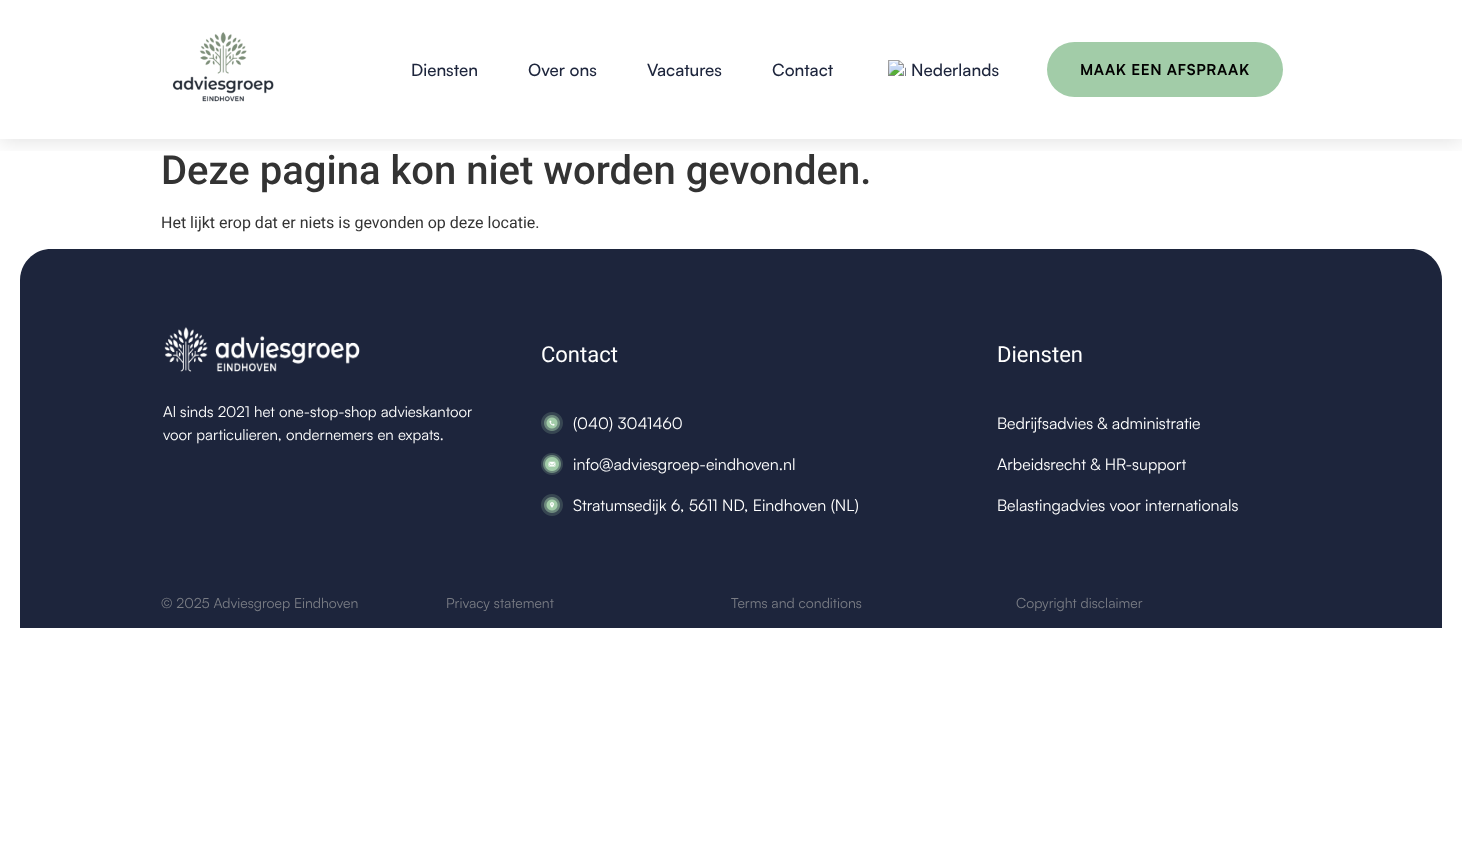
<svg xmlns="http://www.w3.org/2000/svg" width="1462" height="862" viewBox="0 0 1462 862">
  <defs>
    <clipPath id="clip1"><rect x="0" y="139" width="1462" height="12"/></clipPath>
    <filter id="blur1" x="-50%" y="-200%" width="200%" height="500%"><feGaussianBlur stdDeviation="10"/></filter>
  </defs>
  <rect width="100%" height="100%" fill="#ffffff"/>
  <g clip-path="url(#clip1)">
    <rect x="0" y="3" width="1462" height="139" fill="#000000" fill-opacity="0.11" filter="url(#blur1)"/>
  </g>
  <image x="172" y="32" width="102" height="70" href="img1.png"/>
  <text x="411" y="76" font-family="Satoshi" font-size="17" font-weight="500" fill="#1d253c">Diensten</text>
  <text x="528" y="76" font-family="Satoshi" font-size="17" font-weight="500" fill="#1d253c">Over ons</text>
  <text x="647" y="76" font-family="Satoshi" font-size="17" font-weight="500" fill="#1d253c">Vacatures</text>
  <text x="772" y="76" font-family="Satoshi" font-size="17" font-weight="500" fill="#1d253c">Contact</text>
  <image x="888" y="60" width="18" height="16" href="img2.png"/>
  <text x="911" y="76" font-family="Satoshi" font-size="17" font-weight="500" fill="#1d253c">Nederlands</text>
  <rect x="1047" y="42" width="236" height="55" rx="27.5" fill="#a2cca8"/>
  <text x="1080" y="75" font-family="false" font-size="15" font-weight="bold" letter-spacing="0.6" fill="#020101">MAAK EEN AFSPRAAK</text>
  <text x="161" y="184" font-family="Roboto" font-size="40" font-weight="500" fill="#333333">Deze pagina kon niet worden gevonden.</text>
  <text x="161" y="228" font-family="Roboto" font-size="16" fill="#333333">Het lijkt erop dat er niets is gevonden op deze locatie.</text>
  <path d="M51 249H1411C1428 249 1442 263 1442 280V592H20V280C20 263 34 249 51 249Z" fill="#1d253c"/>
  <image x="164" y="327" width="196" height="45" href="img3.png"/>
  <text x="163" y="417" font-family="Satoshi" font-size="15" fill="#ffffff">Al sinds 2021 het one-stop-shop advieskantoor</text>
  <text x="163" y="440" font-family="Satoshi" font-size="15" fill="#ffffff">voor particulieren, ondernemers en expats.</text>
  <text x="541" y="362" font-family="Roboto" font-size="22" fill="#ffffff">Contact</text>
  <image x="541" y="412" width="22" height="22" href="img4.png"/>
  <text x="573" y="429" font-family="Satoshi" font-size="16" fill="#ffffff">(040) 3041460</text>
  <image x="541" y="453" width="22" height="22" href="img5.png"/>
  <text x="573" y="470" font-family="Satoshi" font-size="16" fill="#ffffff">info@adviesgroep-eindhoven.nl</text>
  <image x="541" y="494" width="22" height="22" href="img6.png"/>
  <text x="573" y="511" font-family="Satoshi" font-size="16" fill="#ffffff">Stratumsedijk 6, 5611 ND, Eindhoven (NL)</text>
  <text x="997" y="362" font-family="Roboto" font-size="22" fill="#ffffff">Diensten</text>
  <text x="997" y="429" font-family="Satoshi" font-size="16" fill="#ffffff">Bedrijfsadvies &amp; administratie</text>
  <text x="997" y="470" font-family="Satoshi" font-size="16" fill="#ffffff">Arbeidsrecht &amp; HR-support</text>
  <text x="997" y="511" font-family="Satoshi" font-size="16" fill="#ffffff">Belastingadvies voor internationals</text>
  <rect x="20" y="592" width="1422" height="36" fill="#1d253c"/>
  <text x="161" y="608" font-family="Satoshi" font-size="14" fill="#797c84">© 2025 Adviesgroep Eindhoven</text>
  <text x="446" y="608" font-family="Satoshi" font-size="14" fill="#797c84">Privacy statement</text>
  <text x="731" y="608" font-family="Satoshi" font-size="14" fill="#797c84">Terms and conditions</text>
  <text x="1016" y="608" font-family="Satoshi" font-size="14" fill="#797c84">Copyright disclaimer</text>
</svg>
